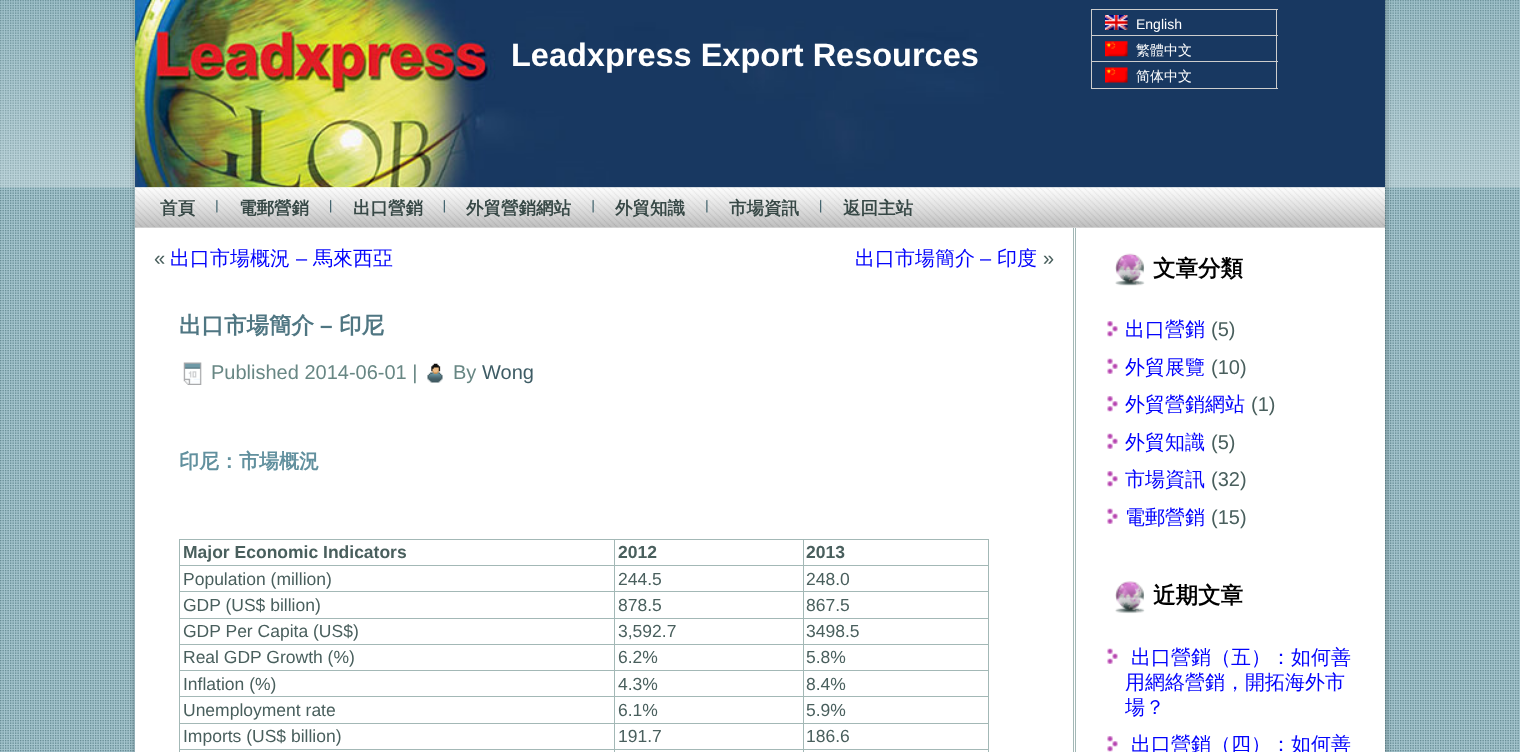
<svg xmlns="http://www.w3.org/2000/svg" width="1520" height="752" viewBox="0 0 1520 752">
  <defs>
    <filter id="blur1" x="-50%" y="-200%" width="200%" height="500%"><feGaussianBlur stdDeviation="2"/></filter>
  </defs>
  <rect width="100%" height="100%" fill="#ffffff"/>
  <image x="0" y="0" width="1520" height="752" href="img1.png"/>
  <rect x="133" y="-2" width="1255" height="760" fill="#000000" fill-opacity="0.15" filter="url(#blur1)"/>
  <rect x="135" y="187" width="1250" height="565" fill="#ffffff"/>
  <image x="135" y="0" width="1250" height="188" href="img2.png"/>
  <text x="511" y="66" font-family="Liberation Sans" font-size="32.5" font-weight="bold" fill="#ffffff">Leadxpress Export Resources</text>
  <rect x="1091" y="9" width="187" height="1" fill="#cdcdcd"/>
  <rect x="1276" y="10" width="1" height="79" fill="#cdcdcd"/>
  <rect x="1091" y="35" width="187" height="1" fill="#cdcdcd"/>
  <rect x="1091" y="10" width="1" height="26" fill="#cdcdcd"/>
  <image x="1105" y="15" width="23" height="15" href="img3.png"/>
  <text x="1136" y="29" font-family="Liberation Sans" font-size="14" fill="#ffffff">English</text>
  <rect x="1091" y="61" width="187" height="1" fill="#cdcdcd"/>
  <rect x="1091" y="36" width="1" height="27" fill="#cdcdcd"/>
  <image x="1105" y="41" width="23" height="16" href="img4.png"/>
  <text x="1136" y="55" font-family="WenQuanYi Zen Hei" font-size="14" font-weight="500" fill="#ffffff">繁體中文</text>
  <rect x="1091" y="88" width="187" height="1" fill="#cdcdcd"/>
  <rect x="1091" y="63" width="1" height="26" fill="#cdcdcd"/>
  <image x="1105" y="67" width="23" height="16" href="img5.png"/>
  <text x="1136" y="81" font-family="WenQuanYi Zen Hei" font-size="14" font-weight="500" fill="#ffffff">简体中文</text>
  <image x="135" y="187" width="1250" height="41" href="img6.png"/>
  <text x="160" y="214" font-family="WenQuanYi Zen Hei" font-size="17.5" font-weight="bold" fill="#374846">首頁</text>
  <image x="216" y="199" width="2" height="14" href="img7.png"/>
  <text x="239" y="214" font-family="WenQuanYi Zen Hei" font-size="17.5" font-weight="bold" fill="#374846">電郵營銷</text>
  <image x="330" y="199" width="2" height="14" href="img8.png"/>
  <text x="353" y="214" font-family="WenQuanYi Zen Hei" font-size="17.5" font-weight="bold" fill="#374846">出口營銷</text>
  <image x="443" y="199" width="2" height="14" href="img9.png"/>
  <text x="466" y="214" font-family="WenQuanYi Zen Hei" font-size="17.5" font-weight="bold" fill="#374846">外貿營銷網站</text>
  <image x="592" y="199" width="2" height="14" href="img10.png"/>
  <text x="615" y="214" font-family="WenQuanYi Zen Hei" font-size="17.5" font-weight="bold" fill="#374846">外貿知識</text>
  <image x="706" y="199" width="2" height="14" href="img11.png"/>
  <text x="729" y="214" font-family="WenQuanYi Zen Hei" font-size="17.5" font-weight="bold" fill="#374846">市場資訊</text>
  <image x="820" y="199" width="2" height="14" href="img12.png"/>
  <text x="843" y="214" font-family="WenQuanYi Zen Hei" font-size="17.5" font-weight="bold" fill="#374846">返回主站</text>
  <text x="154" y="265" font-family="Liberation Sans" font-size="20" fill="#495f5d">«</text>
  <text x="170" y="265" font-family="WenQuanYi Zen Hei" font-size="20" font-weight="500" fill="#0303fc">出口市場概況</text>
  <text x="296" y="265" font-family="Liberation Sans" font-size="20" fill="#0303fc">–</text>
  <text x="313" y="265" font-family="WenQuanYi Zen Hei" font-size="20" font-weight="500" fill="#0303fc">馬來西亞</text>
  <text x="855" y="265" font-family="WenQuanYi Zen Hei" font-size="20" font-weight="500" fill="#0303fc">出口市場簡介</text>
  <text x="980" y="265" font-family="Liberation Sans" font-size="20" fill="#0303fc">–</text>
  <text x="997" y="265" font-family="WenQuanYi Zen Hei" font-size="20" font-weight="500" fill="#0303fc">印度</text>
  <text x="1043" y="265" font-family="Liberation Sans" font-size="20" fill="#495f5d">»</text>
  <text x="179" y="333" font-family="WenQuanYi Zen Hei" font-size="22.5" font-weight="bold" fill="#4f7682">出口市場簡介</text>
  <text x="320" y="333" font-family="Liberation Sans" font-size="22.5" font-weight="bold" fill="#4f7682">–</text>
  <text x="339" y="333" font-family="WenQuanYi Zen Hei" font-size="22.5" font-weight="bold" fill="#4f7682">印尼</text>
  <image x="183" y="362" width="19" height="23" href="img13.png"/>
  <text x="211" y="379" font-family="Liberation Sans" font-size="20" fill="#688784">Published 2014-06-01 |</text>
  <image x="427" y="363" width="16" height="20" href="img14.png"/>
  <text x="453" y="379" font-family="Liberation Sans" font-size="20" fill="#688784">By</text>
  <text x="482" y="379" font-family="Liberation Sans" font-size="20" fill="#3e5c65">Wong</text>
  <text x="179" y="468" font-family="WenQuanYi Zen Hei" font-size="20" font-weight="bold" fill="#61909e">印尼：市場概況</text>
  <rect x="803" y="539" width="186" height="1" fill="#a3b8b6"/>
  <rect x="803" y="565" width="186" height="1" fill="#a3b8b6"/>
  <rect x="803" y="591" width="186" height="1" fill="#a3b8b6"/>
  <rect x="803" y="618" width="186" height="1" fill="#a3b8b6"/>
  <rect x="803" y="644" width="186" height="1" fill="#a3b8b6"/>
  <rect x="803" y="670" width="186" height="1" fill="#a3b8b6"/>
  <rect x="803" y="696" width="186" height="1" fill="#a3b8b6"/>
  <rect x="803" y="723" width="186" height="1" fill="#a3b8b6"/>
  <rect x="803" y="749" width="186" height="1" fill="#a3b8b6"/>
  <rect x="803" y="749" width="1" height="3" fill="#a3b8b6"/>
  <rect x="614" y="749" width="190" height="1" fill="#a3b8b6"/>
  <rect x="803" y="723" width="1" height="27" fill="#a3b8b6"/>
  <rect x="614" y="723" width="190" height="1" fill="#a3b8b6"/>
  <rect x="803" y="696" width="1" height="28" fill="#a3b8b6"/>
  <rect x="614" y="696" width="190" height="1" fill="#a3b8b6"/>
  <rect x="803" y="670" width="1" height="28" fill="#a3b8b6"/>
  <rect x="614" y="670" width="190" height="1" fill="#a3b8b6"/>
  <rect x="803" y="644" width="1" height="27" fill="#a3b8b6"/>
  <rect x="614" y="644" width="190" height="1" fill="#a3b8b6"/>
  <rect x="803" y="618" width="1" height="27" fill="#a3b8b6"/>
  <rect x="614" y="618" width="190" height="1" fill="#a3b8b6"/>
  <rect x="803" y="591" width="1" height="28" fill="#a3b8b6"/>
  <rect x="614" y="591" width="190" height="1" fill="#a3b8b6"/>
  <rect x="803" y="565" width="1" height="28" fill="#a3b8b6"/>
  <rect x="614" y="565" width="190" height="1" fill="#a3b8b6"/>
  <rect x="803" y="539" width="1" height="27" fill="#a3b8b6"/>
  <rect x="614" y="539" width="190" height="1" fill="#a3b8b6"/>
  <rect x="614" y="749" width="1" height="3" fill="#a3b8b6"/>
  <rect x="179" y="749" width="436" height="1" fill="#a3b8b6"/>
  <rect x="614" y="723" width="1" height="27" fill="#a3b8b6"/>
  <rect x="179" y="723" width="436" height="1" fill="#a3b8b6"/>
  <rect x="614" y="696" width="1" height="28" fill="#a3b8b6"/>
  <rect x="179" y="696" width="436" height="1" fill="#a3b8b6"/>
  <rect x="614" y="670" width="1" height="28" fill="#a3b8b6"/>
  <rect x="179" y="670" width="436" height="1" fill="#a3b8b6"/>
  <rect x="614" y="644" width="1" height="27" fill="#a3b8b6"/>
  <rect x="179" y="644" width="436" height="1" fill="#a3b8b6"/>
  <rect x="614" y="618" width="1" height="27" fill="#a3b8b6"/>
  <rect x="179" y="618" width="436" height="1" fill="#a3b8b6"/>
  <rect x="614" y="591" width="1" height="28" fill="#a3b8b6"/>
  <rect x="179" y="591" width="436" height="1" fill="#a3b8b6"/>
  <rect x="614" y="565" width="1" height="28" fill="#a3b8b6"/>
  <rect x="179" y="565" width="436" height="1" fill="#a3b8b6"/>
  <rect x="614" y="539" width="1" height="27" fill="#a3b8b6"/>
  <rect x="179" y="539" width="436" height="1" fill="#a3b8b6"/>
  <rect x="179" y="749" width="1" height="3" fill="#a3b8b6"/>
  <rect x="179" y="723" width="1" height="27" fill="#a3b8b6"/>
  <rect x="179" y="696" width="1" height="28" fill="#a3b8b6"/>
  <rect x="179" y="670" width="1" height="28" fill="#a3b8b6"/>
  <rect x="179" y="644" width="1" height="27" fill="#a3b8b6"/>
  <rect x="179" y="618" width="1" height="27" fill="#a3b8b6"/>
  <rect x="179" y="591" width="1" height="28" fill="#a3b8b6"/>
  <rect x="179" y="565" width="1" height="28" fill="#a3b8b6"/>
  <rect x="179" y="539" width="1" height="27" fill="#a3b8b6"/>
  <text x="183" y="558" font-family="Liberation Sans" font-size="17.5" font-weight="bold" fill="#495f5d">Major Economic Indicators</text>
  <text x="618" y="558" font-family="Liberation Sans" font-size="17.5" font-weight="bold" fill="#495f5d">2012</text>
  <rect x="988" y="749" width="1" height="3" fill="#a3b8b6"/>
  <rect x="988" y="723" width="1" height="27" fill="#a3b8b6"/>
  <rect x="988" y="696" width="1" height="28" fill="#a3b8b6"/>
  <rect x="988" y="670" width="1" height="28" fill="#a3b8b6"/>
  <rect x="988" y="644" width="1" height="27" fill="#a3b8b6"/>
  <rect x="988" y="618" width="1" height="27" fill="#a3b8b6"/>
  <rect x="988" y="591" width="1" height="28" fill="#a3b8b6"/>
  <rect x="988" y="565" width="1" height="28" fill="#a3b8b6"/>
  <rect x="988" y="539" width="1" height="27" fill="#a3b8b6"/>
  <text x="806" y="558" font-family="Liberation Sans" font-size="17.5" font-weight="bold" fill="#495f5d">2013</text>
  <text x="183" y="585" font-family="Liberation Sans" font-size="17.5" fill="#495f5d">Population (million)</text>
  <text x="618" y="585" font-family="Liberation Sans" font-size="17.5" fill="#495f5d">244.5</text>
  <text x="806" y="585" font-family="Liberation Sans" font-size="17.5" fill="#495f5d">248.0</text>
  <text x="183" y="611" font-family="Liberation Sans" font-size="17.5" fill="#495f5d">GDP (US$ billion)</text>
  <text x="618" y="611" font-family="Liberation Sans" font-size="17.5" fill="#495f5d">878.5</text>
  <text x="806" y="611" font-family="Liberation Sans" font-size="17.5" fill="#495f5d">867.5</text>
  <text x="183" y="637" font-family="Liberation Sans" font-size="17.5" fill="#495f5d">GDP Per Capita (US$)</text>
  <text x="618" y="637" font-family="Liberation Sans" font-size="17.5" fill="#495f5d">3,592.7</text>
  <text x="806" y="637" font-family="Liberation Sans" font-size="17.5" fill="#495f5d">3498.5</text>
  <text x="183" y="663" font-family="Liberation Sans" font-size="17.5" fill="#495f5d">Real GDP Growth (%)</text>
  <text x="618" y="663" font-family="Liberation Sans" font-size="17.5" fill="#495f5d">6.2%</text>
  <text x="806" y="663" font-family="Liberation Sans" font-size="17.5" fill="#495f5d">5.8%</text>
  <text x="183" y="690" font-family="Liberation Sans" font-size="17.5" fill="#495f5d">Inflation (%)</text>
  <text x="618" y="690" font-family="Liberation Sans" font-size="17.5" fill="#495f5d">4.3%</text>
  <text x="806" y="690" font-family="Liberation Sans" font-size="17.5" fill="#495f5d">8.4%</text>
  <text x="183" y="716" font-family="Liberation Sans" font-size="17.5" fill="#495f5d">Unemployment rate</text>
  <text x="618" y="716" font-family="Liberation Sans" font-size="17.5" fill="#495f5d">6.1%</text>
  <text x="806" y="716" font-family="Liberation Sans" font-size="17.5" fill="#495f5d">5.9%</text>
  <text x="183" y="742" font-family="Liberation Sans" font-size="17.5" fill="#495f5d">Imports (US$ billion)</text>
  <text x="618" y="742" font-family="Liberation Sans" font-size="17.5" fill="#495f5d">191.7</text>
  <text x="806" y="742" font-family="Liberation Sans" font-size="17.5" fill="#495f5d">186.6</text>
  <rect x="1073" y="228" width="1" height="524" fill="#a3b8b6"/>
  <rect x="1075" y="228" width="1" height="524" fill="#a3b8b6"/>
  <image x="1115" y="253" width="30" height="33" href="img15.png"/>
  <text x="1153" y="276" font-family="WenQuanYi Zen Hei" font-size="22.5" font-weight="bold" fill="#000000">文章分類</text>
  <image x="1107" y="321" width="11" height="16" href="img16.png"/>
  <text x="1125" y="336" font-family="WenQuanYi Zen Hei" font-size="20" font-weight="500" fill="#0303fc">出口營銷</text>
  <text x="1211" y="336" font-family="Liberation Sans" font-size="20" fill="#495f5d">(5)</text>
  <image x="1107" y="358" width="11" height="16" href="img17.png"/>
  <text x="1125" y="374" font-family="WenQuanYi Zen Hei" font-size="20" font-weight="500" fill="#0303fc">外貿展覽</text>
  <text x="1211" y="374" font-family="Liberation Sans" font-size="20" fill="#495f5d">(10)</text>
  <image x="1107" y="396" width="11" height="16" href="img16.png"/>
  <text x="1125" y="411" font-family="WenQuanYi Zen Hei" font-size="20" font-weight="500" fill="#0303fc">外貿營銷網站</text>
  <text x="1251" y="411" font-family="Liberation Sans" font-size="20" fill="#495f5d">(1)</text>
  <image x="1107" y="433" width="11" height="16" href="img17.png"/>
  <text x="1125" y="449" font-family="WenQuanYi Zen Hei" font-size="20" font-weight="500" fill="#0303fc">外貿知識</text>
  <text x="1211" y="449" font-family="Liberation Sans" font-size="20" fill="#495f5d">(5)</text>
  <image x="1107" y="471" width="11" height="16" href="img16.png"/>
  <text x="1125" y="486" font-family="WenQuanYi Zen Hei" font-size="20" font-weight="500" fill="#0303fc">市場資訊</text>
  <text x="1211" y="486" font-family="Liberation Sans" font-size="20" fill="#495f5d">(32)</text>
  <image x="1107" y="508" width="11" height="16" href="img17.png"/>
  <text x="1125" y="524" font-family="WenQuanYi Zen Hei" font-size="20" font-weight="500" fill="#0303fc">電郵營銷</text>
  <text x="1211" y="524" font-family="Liberation Sans" font-size="20" fill="#495f5d">(15)</text>
  <image x="1115" y="581" width="30" height="33" href="img18.png"/>
  <text x="1153" y="603" font-family="WenQuanYi Zen Hei" font-size="22.5" font-weight="bold" fill="#000000">近期文章</text>
  <image x="1107" y="648" width="11" height="16" href="img17.png"/>
  <text x="1131" y="664" font-family="WenQuanYi Zen Hei" font-size="20" font-weight="500" fill="#0303fc">出口營銷（五）：如何善</text>
  <text x="1125" y="689" font-family="WenQuanYi Zen Hei" font-size="20" font-weight="500" fill="#0303fc">用網絡營銷，開拓海外市</text>
  <text x="1125" y="714" font-family="WenQuanYi Zen Hei" font-size="20" font-weight="500" fill="#0303fc">場？</text>
  <image x="1107" y="736" width="11" height="16" href="img16.png"/>
  <text x="1131" y="751" font-family="WenQuanYi Zen Hei" font-size="20" font-weight="500" fill="#0303fc">出口營銷（四）：如何善</text>
</svg>
